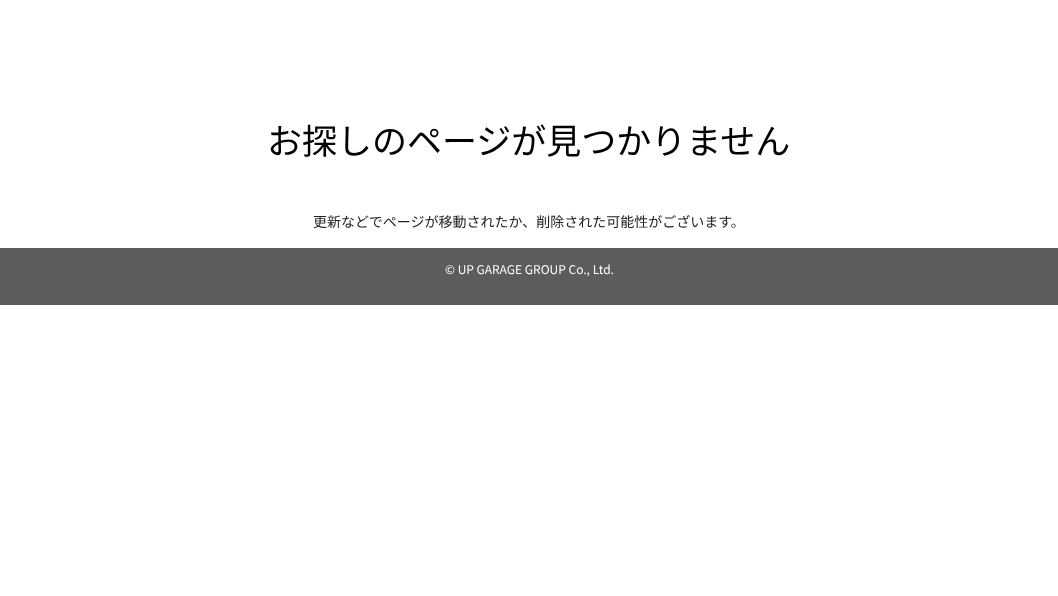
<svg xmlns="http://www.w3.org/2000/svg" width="1058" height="596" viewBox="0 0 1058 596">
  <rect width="100%" height="100%" fill="#ffffff"/>
  <text x="267" y="154" font-family="Noto Sans JP" font-size="35" fill="#000000">お探しのページが見つかりません</text>
  <text x="313" y="227" font-family="Noto Sans JP" font-size="14" fill="#222222">更新などでページが移動されたか、削除された可能性がございます。</text>
  <rect x="0" y="248" width="1058" height="57" fill="#5d5b5c"/>
  <text x="445" y="274" font-family="Noto Sans JP" font-size="12" fill="#ffffff">© UP GARAGE GROUP Co., Ltd.</text>
</svg>
